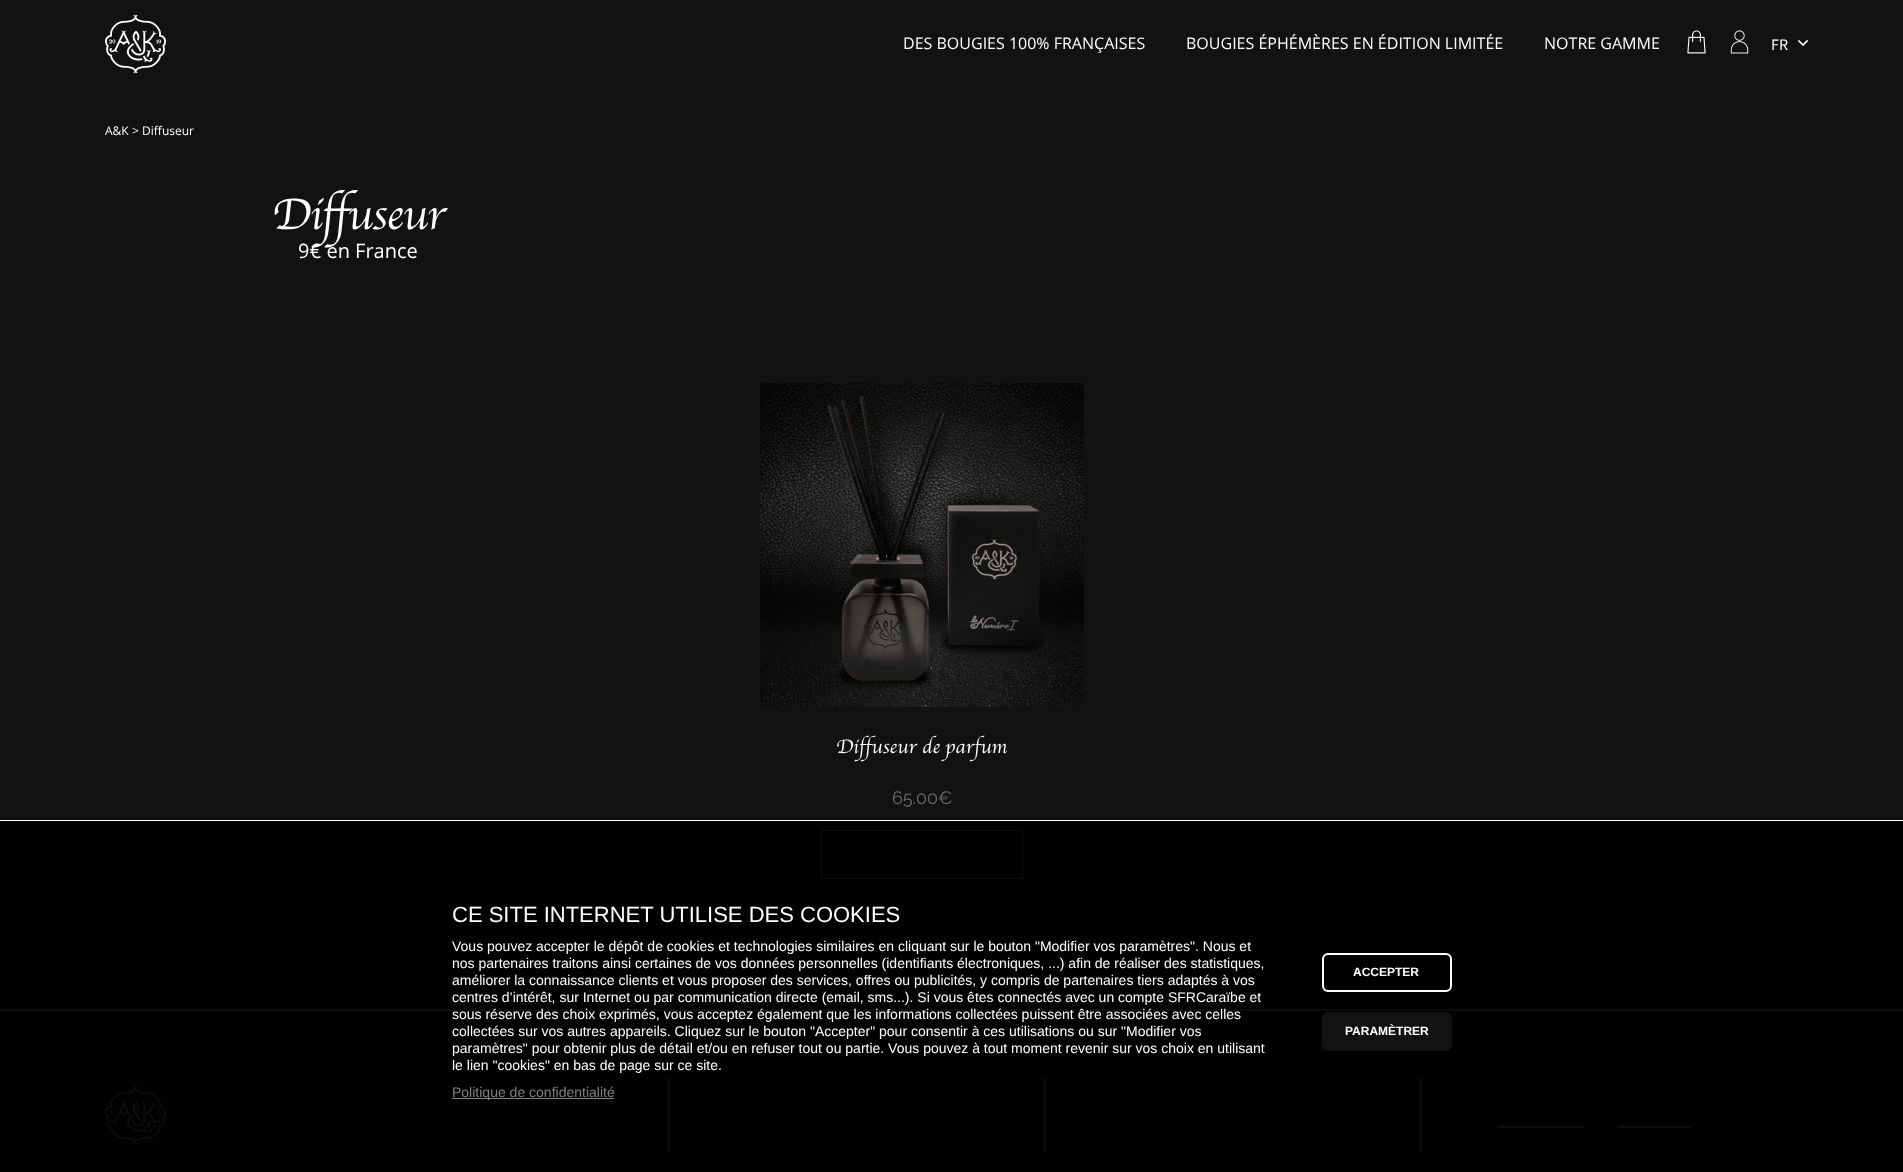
<svg xmlns="http://www.w3.org/2000/svg" width="1903" height="1172" viewBox="0 0 1903 1172">
  <rect width="100%" height="100%" fill="#121212"/>
  <rect x="0" y="821" width="1903" height="351" fill="#010101"/>
  <image x="105" y="15" width="61" height="58" href="img1.png"/>
  <text x="903" y="49" font-family="Open Sans" font-size="16" fill="#ffffff">DES BOUGIES 100% FRANÇAISES</text>
  <text x="1186" y="49" font-family="Open Sans" font-size="16" fill="#ffffff">BOUGIES ÉPHÉMÈRES EN ÉDITION LIMITÉE</text>
  <text x="1544" y="49" font-family="Open Sans" font-size="16" fill="#ffffff">NOTRE GAMME</text>
  <image x="1687" y="30" width="19" height="24" href="img2.png"/>
  <image x="1730" y="30" width="19" height="24" href="img3.png"/>
  <text x="1771" y="50" font-family="Source Sans Pro" font-size="16" fill="#ffffff">FR</text>
  <image x="1798" y="40" width="10" height="7" href="img4.png"/>
  <text x="105" y="135" font-family="Open Sans" font-size="12" fill="#ffffff">A&amp;K</text>
  <text x="132" y="135" font-family="Open Sans" font-size="12" fill="#ffffff">&gt; Diffuseur</text>
  <text x="272" y="229" font-family="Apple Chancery" font-size="45" letter-spacing="-1" fill="#ffffff">Diffuseur</text>
  <text x="298" y="258" font-family="Open Sans" font-size="20" fill="#ffffff">9€ en France</text>
  <image x="760" y="383" width="324" height="324" href="img5.png"/>
  <text x="836" y="753" font-family="Apple Chancery" font-size="20" fill="#ffffff">Diffuseur de parfum</text>
  <text x="892" y="804" font-family="Raleway" font-size="18" fill="#6d6d6d">65.00€</text>
  <rect x="821.5" y="830.5" width="201" height="48" fill="none" stroke="#0d0d0d"/>
  <rect x="0" y="820" width="1903" height="1" fill="#ffffff"/>
  <text x="452" y="922" font-family="Liberation Sans" font-size="22" fill="#ffffff">CE SITE INTERNET UTILISE DES COOKIES</text>
  <text x="452" y="951" font-family="Liberation Sans" font-size="14" fill="#ffffff">Vous pouvez accepter le dépôt de cookies et technologies similaires en cliquant sur le bouton "Modifier vos paramètres". Nous et</text>
  <text x="452" y="968" font-family="Liberation Sans" font-size="14" fill="#ffffff">nos partenaires traitons ainsi certaines de vos données personnelles (identifiants électroniques, ...) afin de réaliser des statistiques,</text>
  <text x="452" y="985" font-family="Liberation Sans" font-size="14" fill="#ffffff">améliorer la connaissance clients et vous proposer des services, offres ou publicités, y compris de partenaires tiers adaptés à vos</text>
  <text x="452" y="1002" font-family="Liberation Sans" font-size="14" fill="#ffffff">centres d’intérêt, sur Internet ou par communication directe (email, sms...). Si vous êtes connectés avec un compte SFRCaraïbe et</text>
  <rect x="0" y="1009" width="1903" height="2" fill="#0d0d0d"/>
  <text x="452" y="1019" font-family="Liberation Sans" font-size="14" fill="#ffffff">sous réserve des choix exprimés, vous acceptez également que les informations collectées puissent être associées avec celles</text>
  <text x="452" y="1036" font-family="Liberation Sans" font-size="14" fill="#ffffff">collectées sur vos autres appareils. Cliquez sur le bouton "Accepter" pour consentir à ces utilisations ou sur "Modifier vos</text>
  <text x="452" y="1053" font-family="Liberation Sans" font-size="14" fill="#ffffff">paramètres" pour obtenir plus de détail et/ou en refuser tout ou partie. Vous pouvez à tout moment revenir sur vos choix en utilisant</text>
  <text x="452" y="1070" font-family="Liberation Sans" font-size="14" fill="#ffffff">le lien "cookies" en bas de page sur ce site.</text>
  <rect x="452" y="1098" width="162" height="1" fill="#ffffff" fill-opacity="0.5"/>
  <text x="452" y="1097" font-family="Liberation Sans" font-size="14" fill="#808080">Politique de confidentialité</text>
  <rect x="1323" y="954" width="128" height="37" rx="5" fill="none" stroke="#ffffff" stroke-width="2"/>
  <text x="1353" y="976" font-family="Liberation Sans" font-size="12" font-weight="bold" fill="#ffffff">ACCEPTER</text>
  <rect x="1323" y="1013" width="128" height="37" rx="5" fill="#121212" stroke="#121212" stroke-width="2"/>
  <text x="1345" y="1035" font-family="Liberation Sans" font-size="12" font-weight="bold" fill="#ffffff">PARAMÈTRER</text>
  <image x="105" y="1086" width="61" height="58" href="img6.png"/>
  <rect x="668" y="1078" width="2" height="74" fill="#0d0d0d"/>
  <rect x="1044" y="1078" width="2" height="74" fill="#0d0d0d"/>
  <rect x="1420" y="1078" width="2" height="74" fill="#0d0d0d"/>
  <rect x="1498" y="1126" width="86" height="2" fill="#0d0d0d"/>
  <rect x="1618" y="1126" width="73" height="2" fill="#0d0d0d"/>
</svg>
